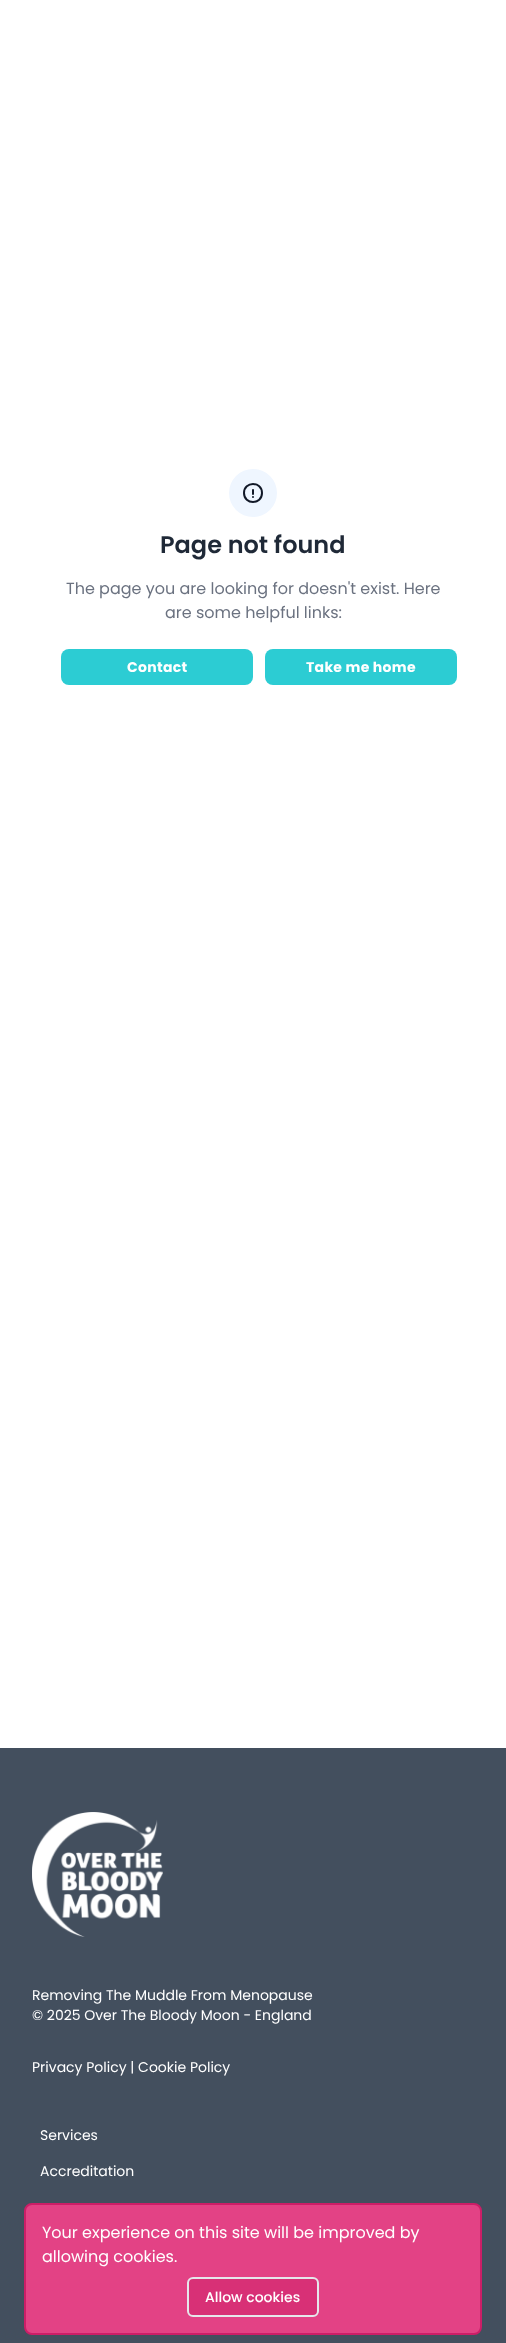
<svg xmlns="http://www.w3.org/2000/svg" width="506" height="2343" viewBox="0 0 506 2343">
  <rect width="100%" height="100%" fill="#ffffff"/>
  <circle cx="253" cy="493" r="24" fill="#eff6ff"/>
  <path d="M253 490V494M262 493C262 505 244 505 244 493C244 481 262 481 262 493ZM253 497H253Z" fill="none" stroke="#111827" stroke-width="2" stroke-linecap="round" stroke-linejoin="round"/>
  <text x="160" y="553" font-family="Poppins" font-size="24" font-weight="600" fill="#1f2937">Page not found</text>
  <text x="66" y="594" font-family="Poppins" font-size="16" fill="#6b7280">The page you are looking for doesn't exist. Here</text>
  <text x="165" y="618" font-family="Poppins" font-size="16" fill="#6b7280">are some helpful links:</text>
  <rect x="61" y="649" width="192" height="36" rx="8" fill="#2cccd3"/>
  <text x="127" y="672" font-family="Poppins" font-size="14" font-weight="bold" letter-spacing="0.3" fill="#ffffff">Contact</text>
  <rect x="265" y="649" width="192" height="36" rx="8" fill="#2cccd3"/>
  <text x="306" y="672" font-family="Poppins" font-size="14" font-weight="bold" letter-spacing="0.3" fill="#ffffff">Take me home</text>
  <rect x="0" y="1748" width="506" height="595" fill="#434f5e"/>
  <image x="32" y="1812" width="131" height="125" href="img1.png"/>
  <text x="32" y="2000" font-family="Poppins" font-size="14" fill="#ffffff">Removing The Muddle From Menopause</text>
  <text x="32" y="2020" font-family="Poppins" font-size="14" fill="#ffffff">© 2025 Over The Bloody Moon - England</text>
  <text x="32" y="2072" font-family="Poppins" font-size="14" fill="#ffffff">Privacy Policy | Cookie Policy</text>
  <text x="40" y="2140" font-family="Poppins" font-size="14" fill="#ffffff">Services</text>
  <text x="40" y="2176" font-family="Poppins" font-size="14" fill="#ffffff">Accreditation</text>
  <rect x="25" y="2204" width="456" height="130" rx="7" fill="#e34285" stroke="#cc1e67" stroke-width="2"/>
  <text x="42" y="2238" font-family="Poppins" font-size="16" fill="#ffffff">Your experience on this site will be improved by</text>
  <text x="42" y="2262" font-family="Poppins" font-size="16" fill="#ffffff">allowing cookies.</text>
  <rect x="188" y="2278" width="130" height="38" rx="5" fill="#d83076" stroke="#e5e7eb" stroke-width="2"/>
  <text x="205" y="2302" font-family="Poppins" font-size="14" font-weight="500" fill="#ffffff">Allow cookies</text>
</svg>
